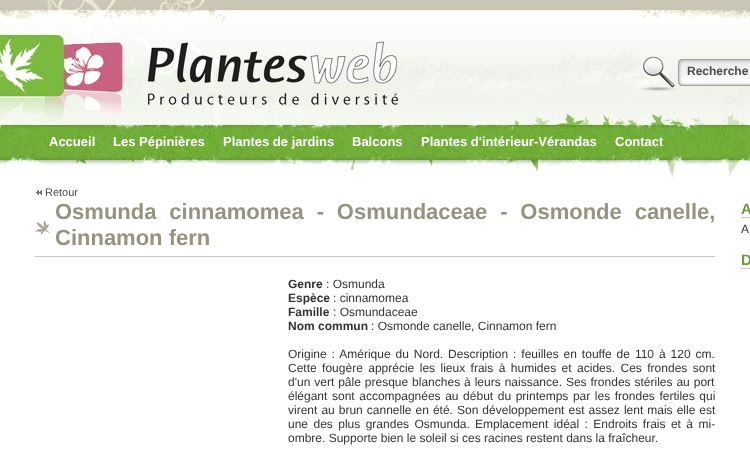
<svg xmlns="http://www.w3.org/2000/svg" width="750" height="457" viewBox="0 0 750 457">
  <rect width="100%" height="100%" fill="#ffffff"/>
  <image x="0" y="0" width="750" height="285" href="img1.png"/>
  <image x="640" y="56" width="110" height="35" href="img2.png"/>
  <text x="687" y="75" font-family="Liberation Sans" font-size="12" font-weight="bold" fill="#4c4c4c">Recherche</text>
  <text x="49" y="146" font-family="Liberation Sans" font-size="13" font-weight="bold" fill="#ffffff">Accueil</text>
  <text x="113" y="146" font-family="Liberation Sans" font-size="13" font-weight="bold" fill="#ffffff">Les Pépinières</text>
  <text x="223" y="146" font-family="Liberation Sans" font-size="13" font-weight="bold" fill="#ffffff">Plantes de jardins</text>
  <text x="352" y="146" font-family="Liberation Sans" font-size="13" font-weight="bold" fill="#ffffff">Balcons</text>
  <text x="421" y="146" font-family="Liberation Sans" font-size="13" font-weight="bold" fill="#ffffff">Plantes d'intérieur-Vérandas</text>
  <text x="615" y="146" font-family="Liberation Sans" font-size="13" font-weight="bold" fill="#ffffff">Contact</text>
  <image x="36" y="190" width="6" height="5" href="img3.png"/>
  <text x="45" y="196" font-family="Liberation Sans" font-size="11" fill="#4c4c4c">Retour</text>
  <image x="35" y="220" width="16" height="15" href="img4.png"/>
  <rect x="35" y="256" width="680" height="1" fill="#c7c7c7"/>
  <text x="55" y="219" word-spacing="6.75" font-family="Liberation Sans" font-size="22" font-weight="bold" fill="#969382">Osmunda cinnamomea - Osmundaceae - Osmonde canelle,</text>
  <text x="55" y="245" font-family="Liberation Sans" font-size="22" font-weight="bold" fill="#969382">Cinnamon fern</text>
  <text x="288" y="288" font-family="Liberation Sans" font-size="12" font-weight="bold" fill="#333333">Genre</text>
  <text x="326" y="288" font-family="Liberation Sans" font-size="12" fill="#333333">: Osmunda</text>
  <text x="288" y="302" font-family="Liberation Sans" font-size="12" font-weight="bold" fill="#333333">Espèce</text>
  <text x="333" y="302" font-family="Liberation Sans" font-size="12" fill="#333333">: cinnamomea</text>
  <text x="288" y="316" font-family="Liberation Sans" font-size="12" font-weight="bold" fill="#333333">Famille</text>
  <text x="333" y="316" font-family="Liberation Sans" font-size="12" fill="#333333">: Osmundaceae</text>
  <text x="288" y="330" font-family="Liberation Sans" font-size="12" font-weight="bold" fill="#333333">Nom commun</text>
  <text x="371" y="330" font-family="Liberation Sans" font-size="12" fill="#333333">: Osmonde canelle, Cinnamon fern</text>
  <text x="288" y="358" word-spacing="1.6" font-family="Liberation Sans" font-size="12" fill="#333333">Origine : Amérique du Nord. Description : feuilles en touffe de 110 à 120 cm.</text>
  <text x="288" y="372" word-spacing="2.1" font-family="Liberation Sans" font-size="12" fill="#333333">Cette fougère apprécie les lieux frais à humides et acides. Ces frondes sont</text>
  <text x="288" y="386" word-spacing="0.6" font-family="Liberation Sans" font-size="12" fill="#333333">d'un vert pâle presque blanches à leurs naissance. Ses frondes stériles au port</text>
  <text x="288" y="400" word-spacing="1.25" font-family="Liberation Sans" font-size="12" fill="#333333">élégant sont accompagnées au début du printemps par les frondes fertiles qui</text>
  <text x="288" y="414" word-spacing="0.7" font-family="Liberation Sans" font-size="12" fill="#333333">virent au brun cannelle en été. Son développement est assez lent mais elle est</text>
  <text x="288" y="428" word-spacing="2.1" font-family="Liberation Sans" font-size="12" fill="#333333">une des plus grandes Osmunda.</text>
  <text x="475" y="428" word-spacing="2.1" font-family="Liberation Sans" font-size="12" fill="#333333">Emplacement idéal : Endroits frais et à mi-</text>
  <text x="288" y="442" font-family="Liberation Sans" font-size="12" fill="#333333">ombre. Supporte bien le soleil si ces racines restent dans la fraîcheur.</text>
  <text x="741" y="214" font-family="Liberation Sans" font-size="15" font-weight="bold" fill="#679e34">A</text>
  <rect x="741" y="217" width="9" height="1" fill="#c7c7c7"/>
  <text x="741" y="233" font-family="Liberation Sans" font-size="12" fill="#333333">A</text>
  <text x="741" y="265" font-family="Liberation Sans" font-size="15" font-weight="bold" fill="#679e34">D</text>
  <rect x="741" y="268" width="9" height="1" fill="#c7c7c7"/>
</svg>
